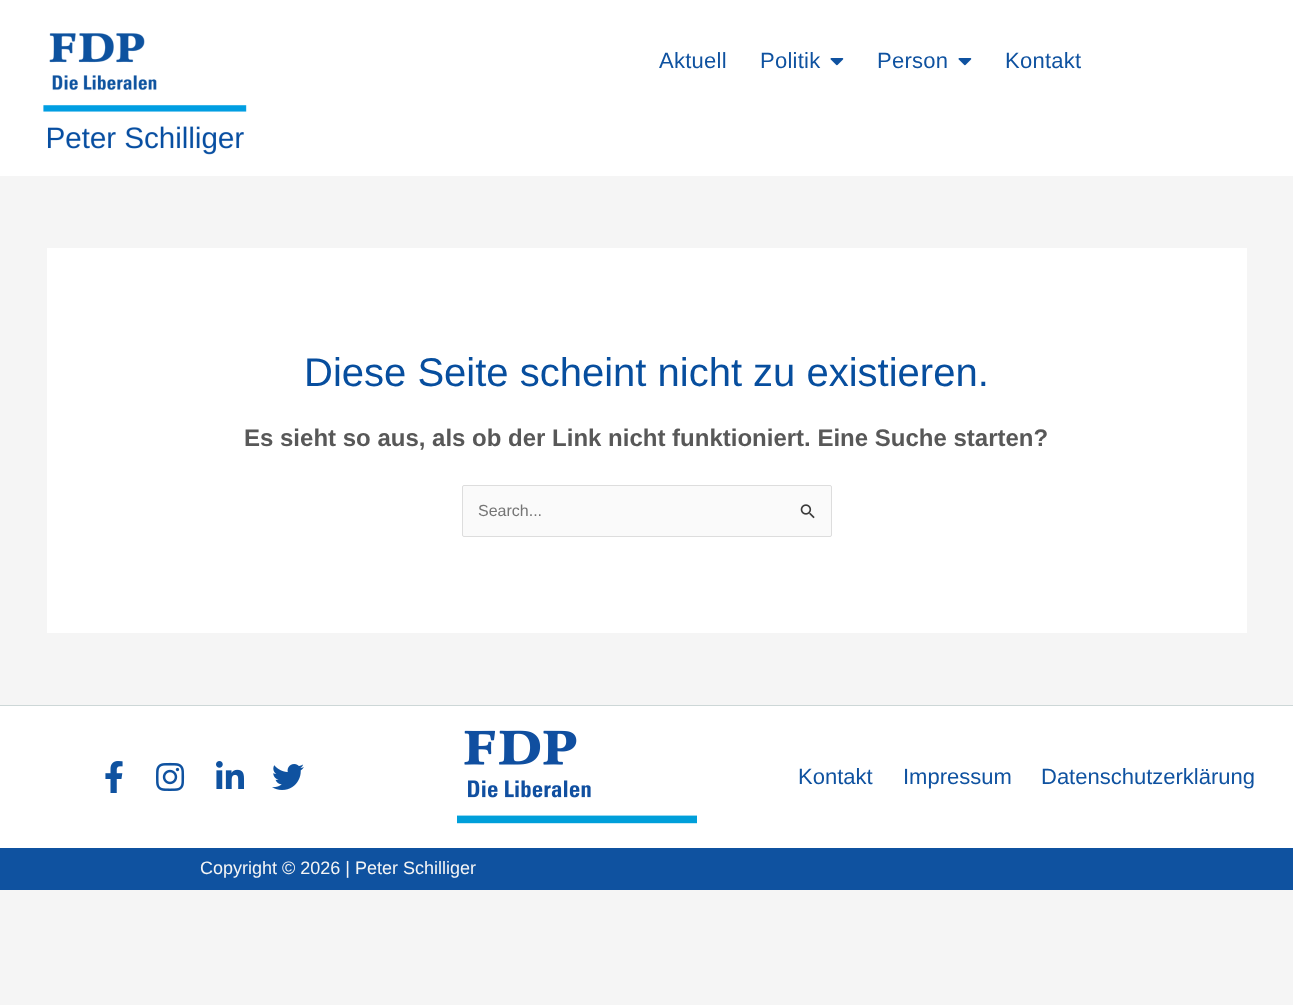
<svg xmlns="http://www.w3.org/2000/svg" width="1293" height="1005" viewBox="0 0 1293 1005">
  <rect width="100%" height="100%" fill="#f5f5f5"/>
  <rect x="0" y="0" width="1293" height="176" fill="#ffffff"/>
  <image x="43" y="33" width="204" height="122" href="img1.png"/>
  <text x="659" y="68" font-family="Liberation Sans" font-size="22" letter-spacing="0.25" fill="#0f52a0">Aktuell</text>
  <text x="760" y="68" font-family="Liberation Sans" font-size="22" letter-spacing="0.25" fill="#0f52a0">Politik</text>
  <image x="830" y="58" width="14" height="8" href="img2.png"/>
  <text x="877" y="68" font-family="Liberation Sans" font-size="22" letter-spacing="0.25" fill="#0f52a0">Person</text>
  <image x="958" y="58" width="14" height="8" href="img2.png"/>
  <text x="1005" y="68" font-family="Liberation Sans" font-size="22" letter-spacing="0.25" fill="#0f52a0">Kontakt</text>
  <rect x="47" y="248" width="1200" height="385" fill="#ffffff"/>
  <text x="304" y="386" font-family="Liberation Sans" font-size="40" fill="#074e9e">Diese Seite scheint nicht zu existieren.</text>
  <text x="244" y="446" font-family="Liberation Sans" font-size="24" font-weight="bold" fill="#585858">Es sieht so aus, als ob der Link nicht funktioniert. Eine Suche starten?</text>
  <rect x="462.5" y="485.5" width="369" height="51" rx="1.5" fill="#fafafa" stroke="#dddddd"/>
  <text x="478" y="516" font-family="Liberation Sans" font-size="16" fill="#757575">Search...</text>
  <image x="800" y="504" width="15" height="15" href="img3.png"/>
  <rect x="0" y="706" width="1293" height="142" fill="#ffffff"/>
  <rect x="0" y="705" width="1293" height="1" fill="#cdd7d7"/>
  <image x="105" y="761" width="18" height="32" href="img4.png"/>
  <image x="156" y="762" width="29" height="29" href="img5.png"/>
  <image x="216" y="761" width="28" height="28" href="img6.png"/>
  <image x="272" y="764" width="32" height="26" href="img7.png"/>
  <image x="457" y="730" width="240" height="94" href="img8.png"/>
  <text x="798" y="784" font-family="Liberation Sans" font-size="22" fill="#0f52a0">Kontakt</text>
  <text x="903" y="784" font-family="Liberation Sans" font-size="22" fill="#0f52a0">Impressum</text>
  <text x="1041" y="784" font-family="Liberation Sans" font-size="22" fill="#0f52a0">Datenschutzerklärung</text>
  <rect x="0" y="848" width="1293" height="42" fill="#0f52a0"/>
  <text x="200" y="874" font-family="Liberation Sans" font-size="18" fill="#f5f5f5">Copyright © 2026 | Peter Schilliger</text>
</svg>
